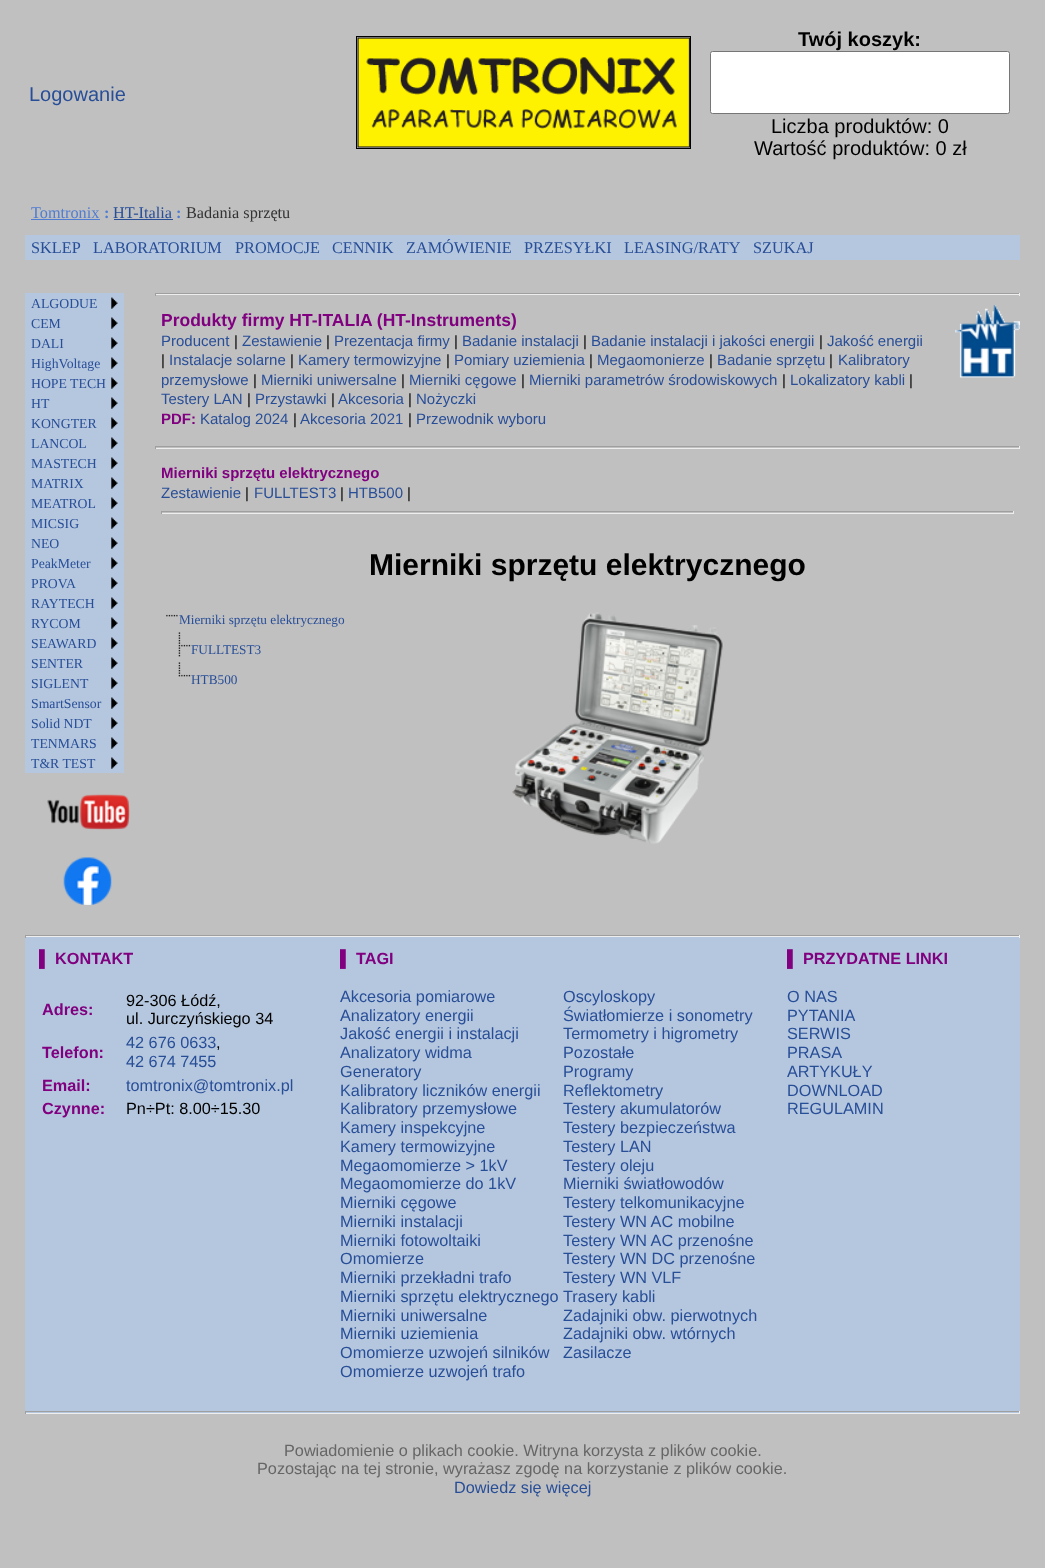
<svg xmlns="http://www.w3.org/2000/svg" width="1045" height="1568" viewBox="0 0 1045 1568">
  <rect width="100%" height="100%" fill="#c0c0c0"/>
  <text x="29" y="101" font-family="Liberation Sans" font-size="20" fill="#284e98">Logowanie</text>
  <rect x="356.5" y="36.5" width="334" height="112" fill="none" stroke="#000000"/>
  <image x="357" y="37" width="333" height="111" href="img1.png"/>
  <text x="798" y="46" font-family="Liberation Sans" font-size="20" font-weight="bold" fill="#000000">Twój koszyk:</text>
  <rect x="710.5" y="51.5" width="299" height="62" rx="2" fill="#ffffff" stroke="#767676"/>
  <text x="771" y="133" font-family="Liberation Sans" font-size="20" fill="#000000">Liczba produktów: 0</text>
  <text x="754" y="155" font-family="Liberation Sans" font-size="20" fill="#000000">Wartość produktów: 0 zł</text>
  <text x="31" y="218" font-family="Liberation Serif" font-size="16.25" fill="#507cd1">Tomtronix</text>
  <rect x="31" y="219" width="69" height="1" fill="#507cd1"/>
  <text x="104" y="218" font-family="Liberation Serif" font-size="16.25" font-weight="bold" fill="#507cd1">:</text>
  <text x="113" y="218" font-family="Liberation Serif" font-size="16.25" fill="#284e98">HT-Italia</text>
  <rect x="114" y="219" width="59" height="1" fill="#284e98"/>
  <text x="176" y="218" font-family="Liberation Serif" font-size="16.25" font-weight="bold" fill="#507cd1">:</text>
  <text x="186" y="218" font-family="Liberation Serif" font-size="16.25" fill="#333333">Badania sprzętu</text>
  <rect x="25" y="235" width="995" height="25" fill="#b5c7de"/>
  <text x="31" y="253" font-family="Liberation Serif" font-size="16.25" fill="#284e98">SKLEP</text>
  <text x="93" y="253" font-family="Liberation Serif" font-size="16.25" fill="#284e98">LABORATORIUM</text>
  <text x="235" y="253" font-family="Liberation Serif" font-size="16.25" fill="#284e98">PROMOCJE</text>
  <text x="332" y="253" font-family="Liberation Serif" font-size="16.25" fill="#284e98">CENNIK</text>
  <text x="406" y="253" font-family="Liberation Serif" font-size="16.25" fill="#284e98">ZAMÓWIENIE</text>
  <text x="524" y="253" font-family="Liberation Serif" font-size="16.25" fill="#284e98">PRZESYŁKI</text>
  <text x="624" y="253" font-family="Liberation Serif" font-size="16.25" fill="#284e98">LEASING/RATY</text>
  <text x="753" y="253" font-family="Liberation Serif" font-size="16.25" fill="#284e98">SZUKAJ</text>
  <rect x="25" y="293" width="99" height="480" fill="#b5c7de"/>
  <image x="111" y="297" width="7" height="12" href="img2.png"/>
  <text x="31" y="308" font-family="Liberation Serif" font-size="13.75" fill="#284e98">ALGODUE</text>
  <image x="111" y="317" width="7" height="12" href="img3.png"/>
  <text x="31" y="328" font-family="Liberation Serif" font-size="13.75" fill="#284e98">CEM</text>
  <image x="111" y="337" width="7" height="12" href="img3.png"/>
  <text x="31" y="348" font-family="Liberation Serif" font-size="13.75" fill="#284e98">DALI</text>
  <image x="111" y="357" width="7" height="12" href="img3.png"/>
  <text x="31" y="368" font-family="Liberation Serif" font-size="13.75" fill="#284e98">HighVoltage</text>
  <image x="111" y="377" width="7" height="12" href="img3.png"/>
  <text x="31" y="388" font-family="Liberation Serif" font-size="13.75" fill="#284e98">HOPE TECH</text>
  <image x="111" y="397" width="7" height="12" href="img3.png"/>
  <text x="31" y="408" font-family="Liberation Serif" font-size="13.75" fill="#284e98">HT</text>
  <image x="111" y="417" width="7" height="12" href="img3.png"/>
  <text x="31" y="428" font-family="Liberation Serif" font-size="13.75" fill="#284e98">KONGTER</text>
  <image x="111" y="437" width="7" height="12" href="img3.png"/>
  <text x="31" y="448" font-family="Liberation Serif" font-size="13.75" fill="#284e98">LANCOL</text>
  <image x="111" y="457" width="7" height="12" href="img3.png"/>
  <text x="31" y="468" font-family="Liberation Serif" font-size="13.75" fill="#284e98">MASTECH</text>
  <image x="111" y="477" width="7" height="12" href="img3.png"/>
  <text x="31" y="488" font-family="Liberation Serif" font-size="13.75" fill="#284e98">MATRIX</text>
  <image x="111" y="497" width="7" height="12" href="img3.png"/>
  <text x="31" y="508" font-family="Liberation Serif" font-size="13.75" fill="#284e98">MEATROL</text>
  <image x="111" y="517" width="7" height="12" href="img3.png"/>
  <text x="31" y="528" font-family="Liberation Serif" font-size="13.75" fill="#284e98">MICSIG</text>
  <image x="111" y="537" width="7" height="12" href="img3.png"/>
  <text x="31" y="548" font-family="Liberation Serif" font-size="13.75" fill="#284e98">NEO</text>
  <image x="111" y="557" width="7" height="12" href="img3.png"/>
  <text x="31" y="568" font-family="Liberation Serif" font-size="13.75" fill="#284e98">PeakMeter</text>
  <image x="111" y="577" width="7" height="12" href="img3.png"/>
  <text x="31" y="588" font-family="Liberation Serif" font-size="13.75" fill="#284e98">PROVA</text>
  <image x="111" y="597" width="7" height="12" href="img3.png"/>
  <text x="31" y="608" font-family="Liberation Serif" font-size="13.75" fill="#284e98">RAYTECH</text>
  <image x="111" y="617" width="7" height="12" href="img3.png"/>
  <text x="31" y="628" font-family="Liberation Serif" font-size="13.75" fill="#284e98">RYCOM</text>
  <image x="111" y="637" width="7" height="12" href="img3.png"/>
  <text x="31" y="648" font-family="Liberation Serif" font-size="13.75" fill="#284e98">SEAWARD</text>
  <image x="111" y="657" width="7" height="12" href="img3.png"/>
  <text x="31" y="668" font-family="Liberation Serif" font-size="13.75" fill="#284e98">SENTER</text>
  <image x="111" y="677" width="7" height="12" href="img3.png"/>
  <text x="31" y="688" font-family="Liberation Serif" font-size="13.75" fill="#284e98">SIGLENT</text>
  <image x="111" y="697" width="7" height="12" href="img3.png"/>
  <text x="31" y="708" font-family="Liberation Serif" font-size="13.75" fill="#284e98">SmartSensor</text>
  <image x="111" y="717" width="7" height="12" href="img3.png"/>
  <text x="31" y="728" font-family="Liberation Serif" font-size="13.75" fill="#284e98">Solid NDT</text>
  <image x="111" y="737" width="7" height="12" href="img3.png"/>
  <text x="31" y="748" font-family="Liberation Serif" font-size="13.75" fill="#284e98">TENMARS</text>
  <image x="111" y="757" width="7" height="12" href="img3.png"/>
  <text x="31" y="768" font-family="Liberation Serif" font-size="13.75" fill="#284e98">T&amp;R TEST</text>
  <image x="47" y="794" width="83" height="36" href="img4.png"/>
  <image x="63" y="857" width="49" height="48" href="img5.png"/>
  <rect x="155" y="293" width="865" height="1" fill="#9f9f9f"/>
  <rect x="1019" y="293" width="1" height="3" fill="#eeeeee"/>
  <rect x="155" y="294" width="865" height="1" fill="#eeeeee"/>
  <rect x="155" y="293" width="1" height="3" fill="#9f9f9f"/>
  <text x="161" y="326" font-family="Liberation Sans" font-size="17.5" font-weight="bold" fill="#800080">Produkty firmy HT-ITALIA (HT-Instruments)</text>
  <text x="161" y="346" font-family="Liberation Sans" font-size="15" fill="#284e98">Producent</text>
  <text x="234" y="346" font-family="Liberation Sans" font-size="15" fill="#000000">|</text>
  <text x="242" y="346" font-family="Liberation Sans" font-size="15" fill="#284e98">Zestawienie</text>
  <text x="326" y="346" font-family="Liberation Sans" font-size="15" fill="#000000">|</text>
  <text x="334" y="346" font-family="Liberation Sans" font-size="15" fill="#284e98">Prezentacja firmy</text>
  <text x="454" y="346" font-family="Liberation Sans" font-size="15" fill="#000000">|</text>
  <text x="462" y="346" font-family="Liberation Sans" font-size="15" fill="#284e98">Badanie instalacji</text>
  <text x="583" y="346" font-family="Liberation Sans" font-size="15" fill="#000000">|</text>
  <text x="591" y="346" font-family="Liberation Sans" font-size="15" fill="#284e98">Badanie instalacji i jakości energii</text>
  <text x="819" y="346" font-family="Liberation Sans" font-size="15" fill="#000000">|</text>
  <text x="827" y="346" font-family="Liberation Sans" font-size="15" fill="#284e98">Jakość energii</text>
  <text x="161" y="365" font-family="Liberation Sans" font-size="15" fill="#000000">|</text>
  <text x="169" y="365" font-family="Liberation Sans" font-size="15" fill="#284e98">Instalacje solarne</text>
  <text x="290" y="365" font-family="Liberation Sans" font-size="15" fill="#000000">|</text>
  <text x="298" y="365" font-family="Liberation Sans" font-size="15" fill="#284e98">Kamery termowizyjne</text>
  <text x="446" y="365" font-family="Liberation Sans" font-size="15" fill="#000000">|</text>
  <text x="454" y="365" font-family="Liberation Sans" font-size="15" fill="#284e98">Pomiary uziemienia</text>
  <text x="589" y="365" font-family="Liberation Sans" font-size="15" fill="#000000">|</text>
  <text x="597" y="365" font-family="Liberation Sans" font-size="15" fill="#284e98">Megaomonierze</text>
  <text x="709" y="365" font-family="Liberation Sans" font-size="15" fill="#000000">|</text>
  <text x="717" y="365" font-family="Liberation Sans" font-size="15" fill="#284e98">Badanie sprzętu</text>
  <text x="829" y="365" font-family="Liberation Sans" font-size="15" fill="#000000">|</text>
  <text x="838" y="365" font-family="Liberation Sans" font-size="15" fill="#284e98">Kalibratory</text>
  <text x="161" y="385" font-family="Liberation Sans" font-size="15" fill="#284e98">przemysłowe</text>
  <text x="253" y="385" font-family="Liberation Sans" font-size="15" fill="#000000">|</text>
  <text x="261" y="385" font-family="Liberation Sans" font-size="15" fill="#284e98">Mierniki uniwersalne</text>
  <text x="401" y="385" font-family="Liberation Sans" font-size="15" fill="#000000">|</text>
  <text x="409" y="385" font-family="Liberation Sans" font-size="15" fill="#284e98">Mierniki cęgowe</text>
  <text x="521" y="385" font-family="Liberation Sans" font-size="15" fill="#000000">|</text>
  <text x="529" y="385" font-family="Liberation Sans" font-size="15" fill="#284e98">Mierniki parametrów środowiskowych</text>
  <text x="782" y="385" font-family="Liberation Sans" font-size="15" fill="#000000">|</text>
  <text x="790" y="385" font-family="Liberation Sans" font-size="15" fill="#284e98">Lokalizatory kabli</text>
  <text x="909" y="385" font-family="Liberation Sans" font-size="15" fill="#000000">|</text>
  <text x="161" y="404" font-family="Liberation Sans" font-size="15" fill="#284e98">Testery LAN</text>
  <text x="247" y="404" font-family="Liberation Sans" font-size="15" fill="#000000">|</text>
  <text x="255" y="404" font-family="Liberation Sans" font-size="15" fill="#284e98">Przystawki</text>
  <text x="331" y="404" font-family="Liberation Sans" font-size="15" fill="#000000">|</text>
  <text x="338" y="404" font-family="Liberation Sans" font-size="15" fill="#284e98">Akcesoria</text>
  <text x="408" y="404" font-family="Liberation Sans" font-size="15" fill="#000000">|</text>
  <text x="416" y="404" font-family="Liberation Sans" font-size="15" fill="#284e98">Nożyczki</text>
  <text x="161" y="424" font-family="Liberation Sans" font-size="15" font-weight="bold" fill="#800080">PDF:</text>
  <text x="200" y="424" font-family="Liberation Sans" font-size="15" fill="#284e98">Katalog 2024</text>
  <text x="293" y="424" font-family="Liberation Sans" font-size="15" fill="#000000">|</text>
  <text x="300" y="424" font-family="Liberation Sans" font-size="15" fill="#284e98">Akcesoria 2021</text>
  <text x="408" y="424" font-family="Liberation Sans" font-size="15" fill="#000000">|</text>
  <text x="416" y="424" font-family="Liberation Sans" font-size="15" fill="#284e98">Przewodnik wyboru</text>
  <image x="955" y="305" width="65" height="73" href="img6.png"/>
  <rect x="155" y="446" width="865" height="1" fill="#9f9f9f"/>
  <rect x="1019" y="446" width="1" height="3" fill="#eeeeee"/>
  <rect x="155" y="448" width="865" height="1" fill="#eeeeee"/>
  <rect x="155" y="446" width="1" height="3" fill="#9f9f9f"/>
  <text x="161" y="478" font-family="Liberation Sans" font-size="15" font-weight="bold" fill="#800080">Mierniki sprzętu elektrycznego</text>
  <text x="161" y="498" font-family="Liberation Sans" font-size="15" fill="#284e98">Zestawienie</text>
  <text x="245" y="498" font-family="Liberation Sans" font-size="15" fill="#000000">|</text>
  <text x="254" y="498" font-family="Liberation Sans" font-size="15" fill="#284e98">FULLTEST3</text>
  <text x="340" y="498" font-family="Liberation Sans" font-size="15" fill="#000000">|</text>
  <text x="348" y="498" font-family="Liberation Sans" font-size="15" fill="#284e98">HTB500</text>
  <text x="407" y="498" font-family="Liberation Sans" font-size="15" fill="#000000">|</text>
  <rect x="161" y="511" width="853" height="1" fill="#9f9f9f"/>
  <rect x="1013" y="511" width="1" height="3" fill="#eeeeee"/>
  <rect x="161" y="513" width="853" height="1" fill="#eeeeee"/>
  <rect x="161" y="511" width="1" height="3" fill="#9f9f9f"/>
  <text x="369" y="575" font-family="Liberation Sans" font-size="30" font-weight="bold" fill="#000000">Mierniki sprzętu elektrycznego</text>
  <image x="166" y="614" width="12" height="3" href="img7.png"/>
  <text x="179" y="624" font-family="Liberation Serif" font-size="13.25" fill="#284e98">Mierniki sprzętu elektrycznego</text>
  <image x="178" y="632" width="13" height="25" href="img8.png"/>
  <text x="191" y="654" font-family="Liberation Serif" font-size="13.25" fill="#284e98">FULLTEST3</text>
  <image x="178" y="662" width="13" height="15" href="img9.png"/>
  <text x="191" y="684" font-family="Liberation Serif" font-size="13.25" fill="#284e98">HTB500</text>
  <image x="512" y="612" width="212" height="232" href="img10.png"/>
  <rect x="25" y="937" width="995" height="476" fill="#b5c7de"/>
  <rect x="25" y="935" width="995" height="1" fill="#9f9f9f"/>
  <rect x="1019" y="935" width="1" height="3" fill="#eeeeee"/>
  <rect x="25" y="936" width="995" height="1" fill="#eeeeee"/>
  <rect x="25" y="935" width="1" height="3" fill="#9f9f9f"/>
  <text x="39" y="964" font-family="Liberation Sans" font-size="16.25" font-weight="bold" fill="#800080">▌ KONTAKT</text>
  <text x="42" y="1015" font-family="Liberation Sans" font-size="16.25" font-weight="bold" fill="#800080">Adres:</text>
  <text x="126" y="1006" font-family="Liberation Sans" font-size="16.25" fill="#000000">92-306 Łódź,</text>
  <text x="126" y="1024" font-family="Liberation Sans" font-size="16.25" fill="#000000">ul. Jurczyńskiego 34</text>
  <text x="42" y="1058" font-family="Liberation Sans" font-size="16.25" font-weight="bold" fill="#800080">Telefon:</text>
  <text x="126" y="1048" font-family="Liberation Sans" font-size="16.25" fill="#284e98">42 676 0633</text>
  <text x="216" y="1048" font-family="Liberation Sans" font-size="16.25" fill="#000000">,</text>
  <text x="126" y="1067" font-family="Liberation Sans" font-size="16.25" fill="#284e98">42 674 7455</text>
  <text x="42" y="1091" font-family="Liberation Sans" font-size="16.25" font-weight="bold" fill="#800080">Email:</text>
  <text x="126" y="1091" font-family="Liberation Sans" font-size="16.25" fill="#284e98">tomtronix@tomtronix.pl</text>
  <text x="42" y="1114" font-family="Liberation Sans" font-size="16.25" font-weight="bold" fill="#800080">Czynne:</text>
  <text x="126" y="1114" font-family="Liberation Sans" font-size="16.25" fill="#000000">Pn÷Pt: 8.00÷15.30</text>
  <text x="340" y="964" font-family="Liberation Sans" font-size="16.25" font-weight="bold" fill="#800080">▌ TAGI</text>
  <text x="340" y="1002" font-family="Liberation Sans" font-size="16.25" fill="#284e98">Akcesoria pomiarowe</text>
  <text x="340" y="1021" font-family="Liberation Sans" font-size="16.25" fill="#284e98">Analizatory energii</text>
  <text x="340" y="1039" font-family="Liberation Sans" font-size="16.25" fill="#284e98">Jakość energii i instalacji</text>
  <text x="340" y="1058" font-family="Liberation Sans" font-size="16.25" fill="#284e98">Analizatory widma</text>
  <text x="340" y="1077" font-family="Liberation Sans" font-size="16.25" fill="#284e98">Generatory</text>
  <text x="340" y="1096" font-family="Liberation Sans" font-size="16.25" fill="#284e98">Kalibratory liczników energii</text>
  <text x="340" y="1114" font-family="Liberation Sans" font-size="16.25" fill="#284e98">Kalibratory przemysłowe</text>
  <text x="340" y="1133" font-family="Liberation Sans" font-size="16.25" fill="#284e98">Kamery inspekcyjne</text>
  <text x="340" y="1152" font-family="Liberation Sans" font-size="16.25" fill="#284e98">Kamery termowizyjne</text>
  <text x="340" y="1171" font-family="Liberation Sans" font-size="16.25" fill="#284e98">Megaomomierze &gt; 1kV</text>
  <text x="340" y="1189" font-family="Liberation Sans" font-size="16.25" fill="#284e98">Megaomomierze do 1kV</text>
  <text x="340" y="1208" font-family="Liberation Sans" font-size="16.25" fill="#284e98">Mierniki cęgowe</text>
  <text x="340" y="1227" font-family="Liberation Sans" font-size="16.25" fill="#284e98">Mierniki instalacji</text>
  <text x="340" y="1246" font-family="Liberation Sans" font-size="16.25" fill="#284e98">Mierniki fotowoltaiki</text>
  <text x="340" y="1264" font-family="Liberation Sans" font-size="16.25" fill="#284e98">Omomierze</text>
  <text x="340" y="1283" font-family="Liberation Sans" font-size="16.25" fill="#284e98">Mierniki przekładni trafo</text>
  <text x="340" y="1302" font-family="Liberation Sans" font-size="16.25" fill="#284e98">Mierniki sprzętu elektrycznego</text>
  <text x="340" y="1321" font-family="Liberation Sans" font-size="16.25" fill="#284e98">Mierniki uniwersalne</text>
  <text x="340" y="1339" font-family="Liberation Sans" font-size="16.25" fill="#284e98">Mierniki uziemienia</text>
  <text x="340" y="1358" font-family="Liberation Sans" font-size="16.25" fill="#284e98">Omomierze uzwojeń silników</text>
  <text x="340" y="1377" font-family="Liberation Sans" font-size="16.25" fill="#284e98">Omomierze uzwojeń trafo</text>
  <text x="563" y="1002" font-family="Liberation Sans" font-size="16.25" fill="#284e98">Oscyloskopy</text>
  <text x="563" y="1021" font-family="Liberation Sans" font-size="16.25" fill="#284e98">Światłomierze i sonometry</text>
  <text x="563" y="1039" font-family="Liberation Sans" font-size="16.25" fill="#284e98">Termometry i higrometry</text>
  <text x="563" y="1058" font-family="Liberation Sans" font-size="16.25" fill="#284e98">Pozostałe</text>
  <text x="563" y="1077" font-family="Liberation Sans" font-size="16.25" fill="#284e98">Programy</text>
  <text x="563" y="1096" font-family="Liberation Sans" font-size="16.25" fill="#284e98">Reflektometry</text>
  <text x="563" y="1114" font-family="Liberation Sans" font-size="16.25" fill="#284e98">Testery akumulatorów</text>
  <text x="563" y="1133" font-family="Liberation Sans" font-size="16.25" fill="#284e98">Testery bezpieczeństwa</text>
  <text x="563" y="1152" font-family="Liberation Sans" font-size="16.25" fill="#284e98">Testery LAN</text>
  <text x="563" y="1171" font-family="Liberation Sans" font-size="16.25" fill="#284e98">Testery oleju</text>
  <text x="563" y="1189" font-family="Liberation Sans" font-size="16.25" fill="#284e98">Mierniki światłowodów</text>
  <text x="563" y="1208" font-family="Liberation Sans" font-size="16.25" fill="#284e98">Testery telkomunikacyjne</text>
  <text x="563" y="1227" font-family="Liberation Sans" font-size="16.25" fill="#284e98">Testery WN AC mobilne</text>
  <text x="563" y="1246" font-family="Liberation Sans" font-size="16.25" fill="#284e98">Testery WN AC przenośne</text>
  <text x="563" y="1264" font-family="Liberation Sans" font-size="16.25" fill="#284e98">Testery WN DC przenośne</text>
  <text x="563" y="1283" font-family="Liberation Sans" font-size="16.25" fill="#284e98">Testery WN VLF</text>
  <text x="563" y="1302" font-family="Liberation Sans" font-size="16.25" fill="#284e98">Trasery kabli</text>
  <text x="563" y="1321" font-family="Liberation Sans" font-size="16.25" fill="#284e98">Zadajniki obw. pierwotnych</text>
  <text x="563" y="1339" font-family="Liberation Sans" font-size="16.25" fill="#284e98">Zadajniki obw. wtórnych</text>
  <text x="563" y="1358" font-family="Liberation Sans" font-size="16.25" fill="#284e98">Zasilacze</text>
  <text x="787" y="964" font-family="Liberation Sans" font-size="16.25" font-weight="bold" fill="#800080">▌ PRZYDATNE LINKI</text>
  <text x="787" y="1002" font-family="Liberation Sans" font-size="16.25" fill="#284e98">O NAS</text>
  <text x="787" y="1021" font-family="Liberation Sans" font-size="16.25" fill="#284e98">PYTANIA</text>
  <text x="787" y="1039" font-family="Liberation Sans" font-size="16.25" fill="#284e98">SERWIS</text>
  <text x="787" y="1058" font-family="Liberation Sans" font-size="16.25" fill="#284e98">PRASA</text>
  <text x="787" y="1077" font-family="Liberation Sans" font-size="16.25" fill="#284e98">ARTYKUŁY</text>
  <text x="787" y="1096" font-family="Liberation Sans" font-size="16.25" fill="#284e98">DOWNLOAD</text>
  <text x="787" y="1114" font-family="Liberation Sans" font-size="16.25" fill="#284e98">REGULAMIN</text>
  <rect x="25" y="1411" width="995" height="1" fill="#9f9f9f"/>
  <rect x="1019" y="1411" width="1" height="3" fill="#eeeeee"/>
  <rect x="25" y="1413" width="995" height="1" fill="#eeeeee"/>
  <rect x="25" y="1411" width="1" height="3" fill="#9f9f9f"/>
  <text x="284" y="1456" font-family="Liberation Sans" font-size="16.25" fill="#666666">Powiadomienie o plikach cookie. Witryna korzysta z plików cookie.</text>
  <text x="257" y="1474" font-family="Liberation Sans" font-size="16.25" fill="#666666">Pozostając na tej stronie, wyrażasz zgodę na korzystanie z plików cookie.</text>
  <text x="454" y="1493" font-family="Liberation Sans" font-size="16.25" fill="#284e98">Dowiedz się więcej</text>
</svg>
